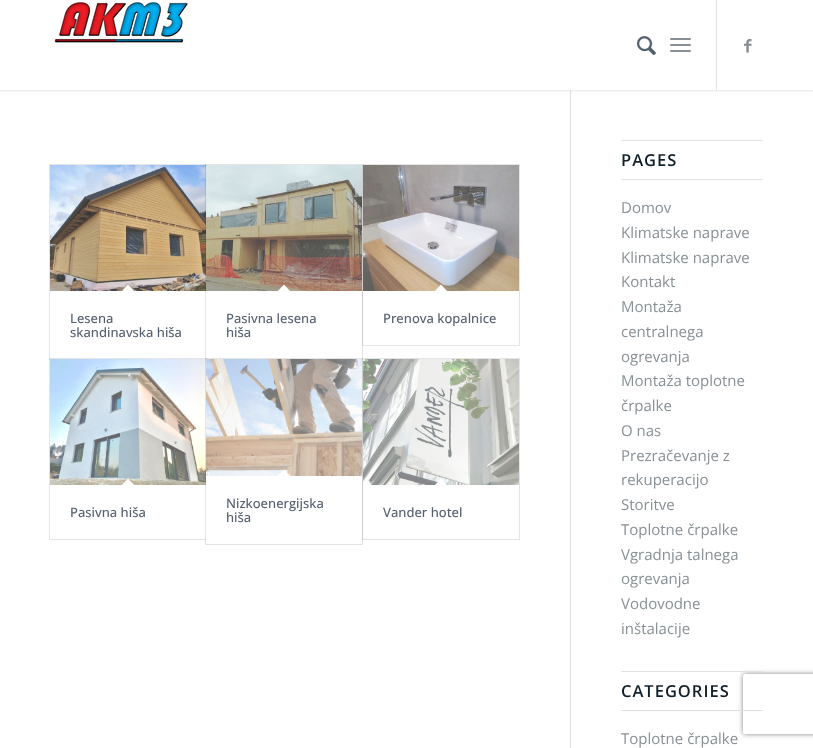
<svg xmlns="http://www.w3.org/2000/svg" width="813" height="748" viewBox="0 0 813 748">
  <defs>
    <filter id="blur1" x="-50%" y="-200%" width="200%" height="500%"><feGaussianBlur stdDeviation="1"/></filter>
    <clipPath id="clip1"><path d="M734 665H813V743H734ZM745 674H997C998 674 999 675 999 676V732C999 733 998 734 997 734H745C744 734 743 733 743 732V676C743 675 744 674 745 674Z" clip-rule="evenodd"/></clipPath>
    <filter id="blur2" x="-50%" y="-200%" width="200%" height="500%"><feGaussianBlur stdDeviation="2.5"/></filter>
  </defs>
  <rect width="100%" height="100%" fill="#ffffff"/>
  <rect x="570" y="90" width="1" height="658" fill="#e1e1e1"/>
  <rect x="-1" y="-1" width="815" height="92" fill="#000000" fill-opacity="0.1" filter="url(#blur1)"/>
  <rect x="0" y="0" width="813" height="90" fill="#ffffff"/>
  <image x="54" y="2" width="134" height="41" href="img1.png"/>
  <rect x="716" y="0" width="1" height="90" fill="#e1e1e1"/>
  <image x="637" y="36" width="19" height="20" href="img2.png"/>
  <rect x="670" y="44" width="21" height="2" rx="1" fill="#889095"/>
  <rect x="670" y="38" width="21" height="2" rx="1" fill="#889095"/>
  <rect x="670" y="50" width="21" height="2" rx="1" fill="#889095"/>
  <image x="744" y="39" width="8" height="14" href="img3.png"/>
  <rect x="49.5" y="164.5" width="157" height="195" fill="none" stroke="#e6e6e6"/>
  <image x="50" y="165" width="156" height="126" href="img4.png"/>
  <path d="M128 284.5L135 292L128 299L121 292Z" fill="#ffffff"/>
  <text x="70" y="323" font-family="Open Sans" font-size="13" font-weight="500" fill="#55606e">Lesena</text>
  <text x="70" y="337" font-family="Open Sans" font-size="13" font-weight="500" fill="#55606e">skandinavska hiša</text>
  <rect x="205.5" y="164.5" width="157" height="195" fill="none" stroke="#000000" stroke-opacity="0.1"/>
  <rect x="206" y="165" width="1" height="194" fill="#ffffff"/>
  <image x="206" y="165" width="156" height="126" href="img5.png"/>
  <path d="M284 284.5L291 292L284 299L277 292Z" fill="#ffffff"/>
  <text x="226" y="323" font-family="Open Sans" font-size="13" font-weight="500" fill="#55606e">Pasivna lesena</text>
  <text x="226" y="337" font-family="Open Sans" font-size="13" font-weight="500" fill="#55606e">hiša</text>
  <rect x="362.5" y="164.5" width="157" height="181" fill="none" stroke="#000000" stroke-opacity="0.1"/>
  <image x="363" y="165" width="156" height="126" href="img6.png"/>
  <path d="M441 284.5L448 292L441 299L434 292Z" fill="#ffffff"/>
  <text x="383" y="323" font-family="Open Sans" font-size="13" font-weight="500" fill="#55606e">Prenova kopalnice</text>
  <rect x="49.5" y="358.5" width="157" height="181" fill="none" stroke="#000000" stroke-opacity="0.1"/>
  <rect x="50" y="359" width="156" height="1" fill="#ffffff"/>
  <image x="50" y="359" width="156" height="126" href="img7.png"/>
  <path d="M128 478.5L135 486L128 493L121 486Z" fill="#ffffff"/>
  <text x="70" y="517" font-family="Open Sans" font-size="13" font-weight="500" fill="#55606e">Pasivna hiša</text>
  <rect x="205.5" y="358.5" width="157" height="186" fill="none" stroke="#000000" stroke-opacity="0.1"/>
  <rect x="206" y="359" width="156" height="181" fill="#ffffff"/>
  <image x="206" y="359" width="156" height="117" href="img8.png"/>
  <path d="M284 469.5L291 476.5L284 484L277 476.5Z" fill="#ffffff"/>
  <text x="226" y="508" font-family="Open Sans" font-size="13" font-weight="500" fill="#55606e">Nizkoenergijska</text>
  <text x="226" y="522" font-family="Open Sans" font-size="13" font-weight="500" fill="#55606e">hiša</text>
  <rect x="362.5" y="358.5" width="157" height="181" fill="none" stroke="#000000" stroke-opacity="0.1"/>
  <image x="363" y="359" width="156" height="126" href="img9.png"/>
  <path d="M441 478.5L448 486L441 493L434 486Z" fill="#ffffff"/>
  <text x="383" y="517" font-family="Open Sans" font-size="13" font-weight="500" fill="#55606e">Vander hotel</text>
  <rect x="621" y="140" width="142" height="1" fill="#e1e1e1"/>
  <rect x="621" y="179" width="142" height="1" fill="#e1e1e1"/>
  <text x="621" y="166" font-family="Open Sans" font-size="16.5" font-weight="600" letter-spacing="1" fill="#11202a">PAGES</text>
  <text x="621" y="213" font-family="Open Sans" font-size="15" fill="#889095">Domov</text>
  <text x="621" y="238" font-family="Open Sans" font-size="15" fill="#889095">Klimatske naprave</text>
  <text x="621" y="263" font-family="Open Sans" font-size="15" fill="#889095">Klimatske naprave</text>
  <text x="621" y="287" font-family="Open Sans" font-size="15" fill="#889095">Kontakt</text>
  <text x="621" y="312" font-family="Open Sans" font-size="15" fill="#889095">Montaža</text>
  <text x="621" y="337" font-family="Open Sans" font-size="15" fill="#889095">centralnega</text>
  <text x="621" y="362" font-family="Open Sans" font-size="15" fill="#889095">ogrevanja</text>
  <text x="621" y="386" font-family="Open Sans" font-size="15" fill="#889095">Montaža toplotne</text>
  <text x="621" y="411" font-family="Open Sans" font-size="15" fill="#889095">črpalke</text>
  <text x="621" y="436" font-family="Open Sans" font-size="15" fill="#889095">O nas</text>
  <text x="621" y="461" font-family="Open Sans" font-size="15" fill="#889095">Prezračevanje z</text>
  <text x="621" y="485" font-family="Open Sans" font-size="15" fill="#889095">rekuperacijo</text>
  <text x="621" y="510" font-family="Open Sans" font-size="15" fill="#889095">Storitve</text>
  <text x="621" y="535" font-family="Open Sans" font-size="15" fill="#889095">Toplotne črpalke</text>
  <text x="621" y="560" font-family="Open Sans" font-size="15" fill="#889095">Vgradnja talnega</text>
  <text x="621" y="584" font-family="Open Sans" font-size="15" fill="#889095">ogrevanja</text>
  <text x="621" y="609" font-family="Open Sans" font-size="15" fill="#889095">Vodovodne</text>
  <text x="621" y="634" font-family="Open Sans" font-size="15" fill="#889095">inštalacije</text>
  <g clip-path="url(#clip1)">
    <rect x="743" y="674" width="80" height="60" rx="2" fill="#808080" filter="url(#blur2)"/>
  </g>
  <rect x="621" y="671" width="142" height="1" fill="#e1e1e1"/>
  <rect x="621" y="710" width="142" height="1" fill="#e1e1e1"/>
  <text x="621" y="697" font-family="Open Sans" font-size="16.5" font-weight="600" letter-spacing="1" fill="#11202a">CATEGORIES</text>
  <text x="621" y="744" font-family="Open Sans" font-size="15" fill="#889095">Toplotne črpalke</text>
</svg>
